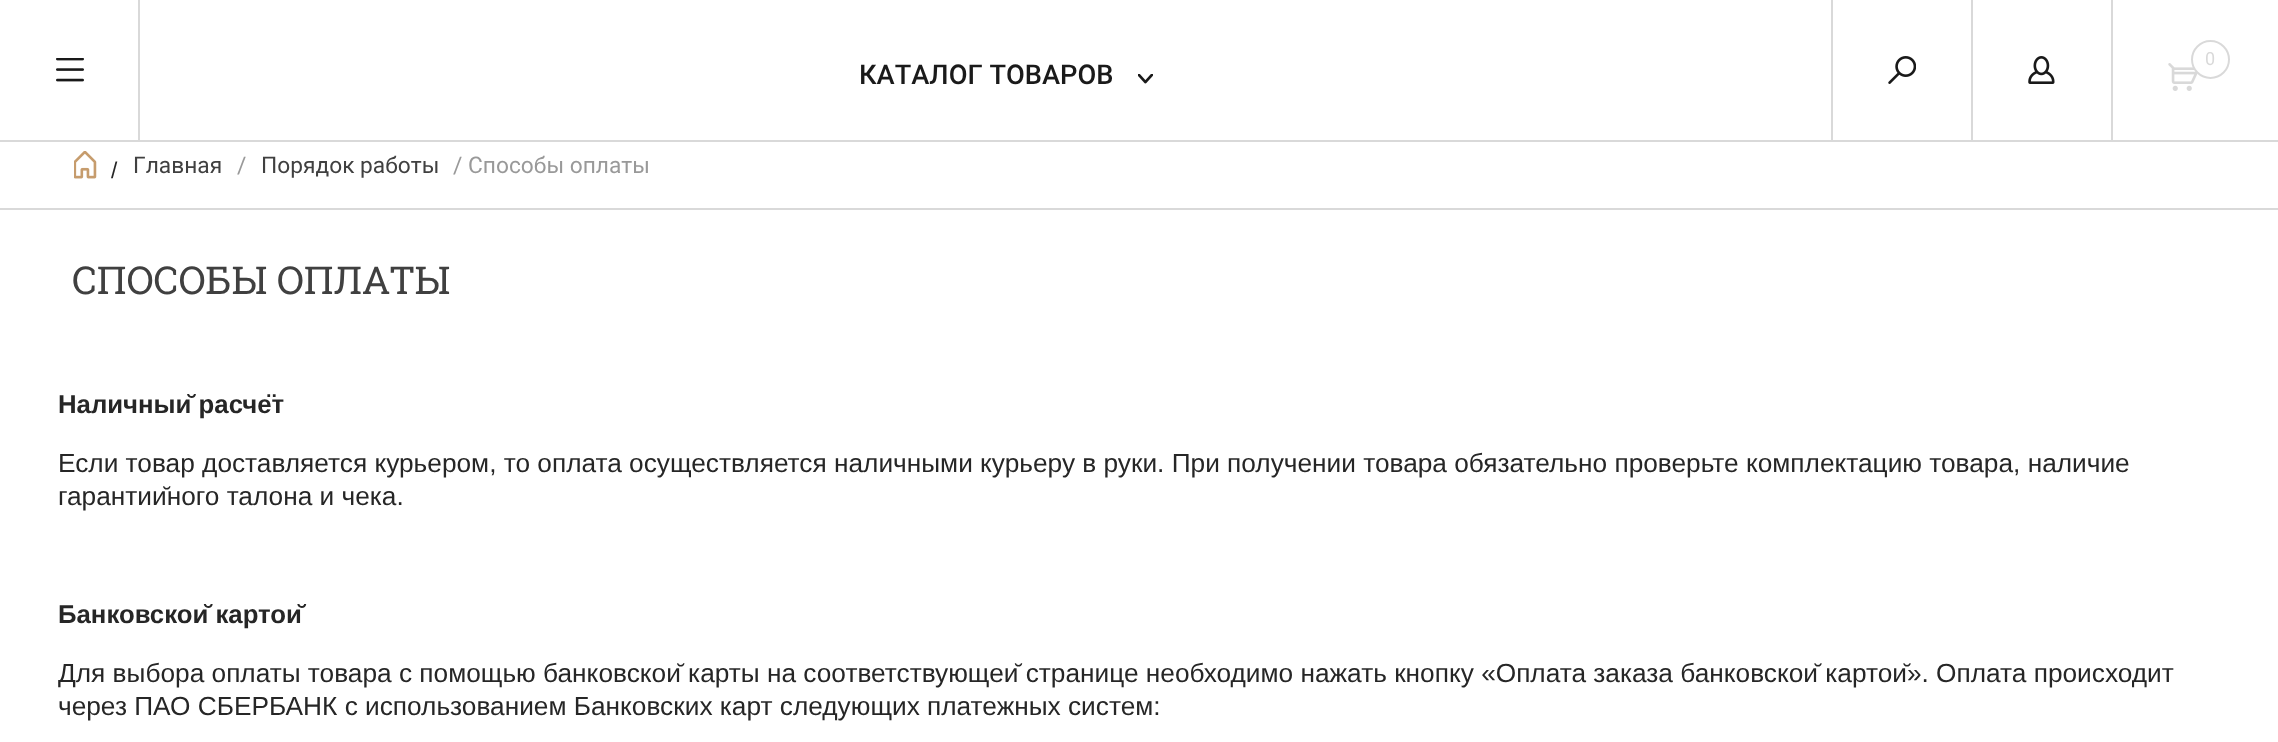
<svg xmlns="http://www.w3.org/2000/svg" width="2278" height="742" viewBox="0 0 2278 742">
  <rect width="100%" height="100%" fill="#ffffff"/>
  <rect x="0" y="140" width="2278" height="2" fill="#d9d9d9"/>
  <image x="56" y="58" width="28" height="24" href="img1.png"/>
  <rect x="138" y="0" width="2" height="140" fill="#d9d9d9"/>
  <rect x="1831" y="0" width="2" height="140" fill="#d9d9d9"/>
  <image x="1888" y="56" width="28" height="28" href="img2.png"/>
  <image x="2028" y="56" width="27" height="28" href="img3.png"/>
  <rect x="1971" y="0" width="2" height="140" fill="#d9d9d9"/>
  <image x="2168" y="63" width="30" height="28" href="img4.png"/>
  <rect x="2111" y="0" width="2" height="140" fill="#d9d9d9"/>
  <circle cx="2210.5" cy="59.5" r="19.5" fill="#ffffff"/>
  <circle cx="2210.5" cy="59.5" r="18.5" fill="none" stroke="#000000" stroke-opacity="0.15" stroke-width="2"/>
  <text x="2205" y="65" font-family="Roboto" font-size="18" fill="#d9d9d9">0</text>
  <text x="859" y="84" font-family="Roboto" font-size="27.25" font-weight="500" fill="#1a1a1a">КАТАЛОГ ТОВАРОВ</text>
  <image x="1138" y="74" width="15" height="10" href="img5.png"/>
  <rect x="0" y="208" width="2278" height="2" fill="#d9d9d9"/>
  <image x="74" y="151" width="23" height="28" href="img6.png"/>
  <text x="111" y="178" font-family="Liberation Sans" font-size="22.75" fill="#262626">/</text>
  <text x="133" y="173" font-family="Roboto" font-size="22.75" fill="#404040">Главная</text>
  <text x="237" y="173" font-family="Roboto" font-size="22.75" fill="#999999">/</text>
  <text x="261" y="173" font-family="Roboto" font-size="22.75" fill="#404040">Порядок работы</text>
  <text x="453" y="173" font-family="Roboto" font-size="22.75" fill="#999999">/ Способы оплаты</text>
  <text x="72" y="294" font-family="Roboto Slab" font-size="38.5" fill="#404040">СПОСОБЫ ОПЛАТЫ</text>
  <text x="58" y="413" font-family="Liberation Sans" font-size="25.75" font-weight="bold" fill="#262626">Наличный расчёт</text>
  <text x="58" y="472" font-family="Liberation Sans" font-size="26.25" fill="#262626">Если товар доставляется курьером, то оплата осуществляется наличными курьеру в руки. При получении товара обязательно проверьте комплектацию товара, наличие</text>
  <text x="58" y="505" font-family="Liberation Sans" font-size="26.25" fill="#262626">гарантийного талона и чека.</text>
  <text x="58" y="623" font-family="Liberation Sans" font-size="25.75" font-weight="bold" fill="#262626">Банковской картой</text>
  <text x="58" y="682" font-family="Liberation Sans" font-size="26.25" fill="#262626">Для выбора оплаты товара с помощью банковской карты на соответствующей странице необходимо нажать кнопку «Оплата заказа банковской картой». Оплата происходит</text>
  <text x="58" y="715" font-family="Liberation Sans" font-size="26.25" fill="#262626">через ПАО СБЕРБАНК с использованием Банковских карт следующих платежных систем:</text>
</svg>
